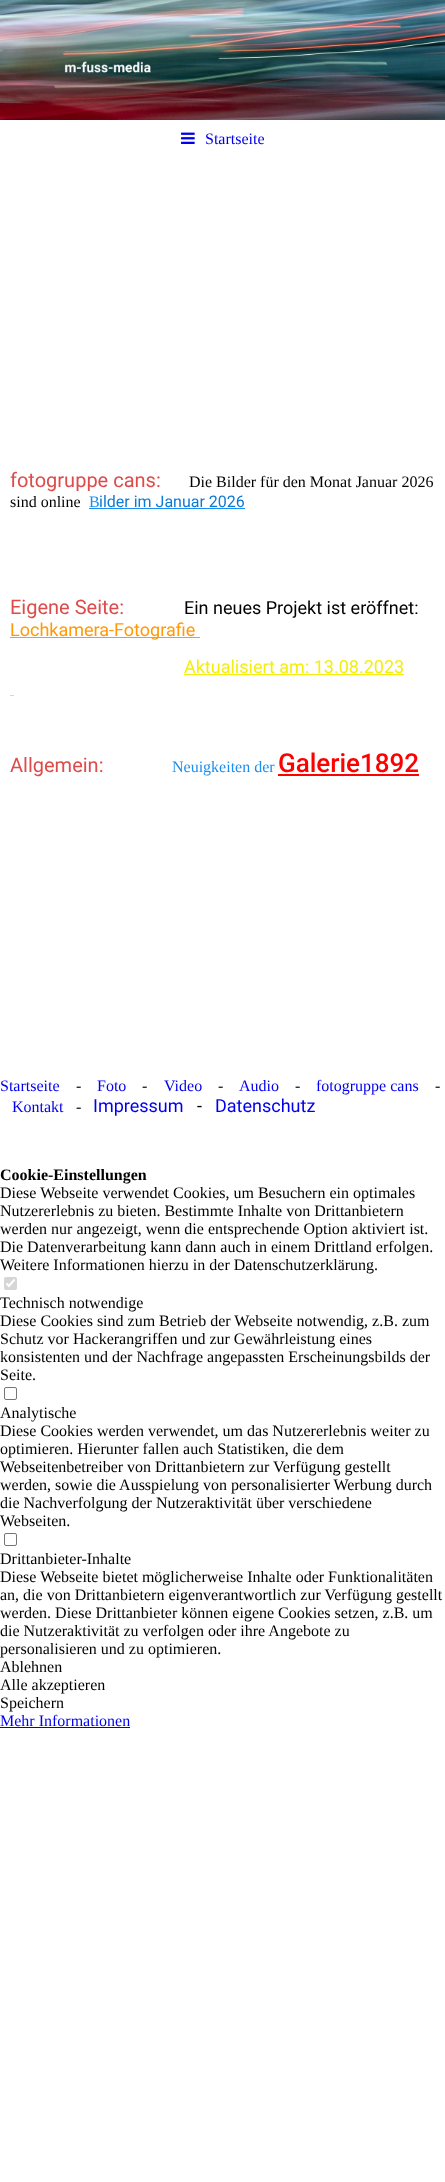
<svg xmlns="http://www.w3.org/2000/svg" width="445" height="2182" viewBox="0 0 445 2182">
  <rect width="100%" height="100%" fill="#ffffff"/>
  <image x="0" y="0" width="445" height="120" href="img1.png"/>
  <image x="181" y="132" width="14" height="12" href="img2.png"/>
  <text x="205" y="144" font-family="Liberation Serif" font-size="16" fill="#0000ee">Startseite</text>
  <text x="10" y="487" font-family="Roboto" font-size="20" fill="#de4b4b">fotogruppe cans:</text>
  <text x="189" y="487" font-family="Liberation Serif" font-size="16" fill="#000000">Die Bilder für den Monat Januar 2026</text>
  <text x="10" y="507" font-family="Liberation Serif" font-size="16" fill="#000000">sind online</text>
  <text x="89" y="507" font-family="Liberation Serif" font-size="16" fill="#1a8ef0">B</text>
  <rect x="89" y="508" width="156" height="1" fill="#1a8ef0"/>
  <text x="99" y="507" font-family="Roboto" font-size="16" fill="#0b7ad7">ilder im Januar 2026</text>
  <text x="10" y="614" font-family="Roboto" font-size="20" fill="#de4b4b">Eigene Seite:</text>
  <text x="184" y="614" font-family="Roboto" font-size="18" fill="#000000">Ein neues Projekt ist eröffnet:</text>
  <rect x="10" y="637" width="190" height="1" fill="#ff9906"/>
  <text x="10" y="636" font-family="Roboto" font-size="18" fill="#ff9906">Lochkamera-Fotografie</text>
  <text x="184" y="673" font-family="Roboto" font-size="18" fill="#f4ee0d">Aktualisiert am: 13.08.2023</text>
  <rect x="184" y="674" width="220" height="1" fill="#f4ee0d"/>
  <rect x="10" y="695" width="4" height="1" fill="#f4ee0d"/>
  <text x="10" y="772" font-family="Roboto" font-size="20" fill="#de4b4b">Allgemein:</text>
  <text x="172" y="772" font-family="Liberation Serif" font-size="16" fill="#1a8ef0">Neuigkeiten der</text>
  <text x="278" y="772" font-family="Roboto" font-size="26" font-weight="500" fill="#ff0000">Galerie1892</text>
  <rect x="278" y="774" width="141" height="2" fill="#ff0000"/>
  <text x="0" y="1091" font-family="Liberation Serif" font-size="16" fill="#0000ee">Startseite</text>
  <text x="76" y="1091" font-family="Liberation Serif" font-size="16" fill="#000000">-</text>
  <text x="97" y="1091" font-family="Liberation Serif" font-size="16" fill="#0000ee">Foto</text>
  <text x="142" y="1091" font-family="Liberation Serif" font-size="16" fill="#000000">-</text>
  <text x="164" y="1091" font-family="Liberation Serif" font-size="16" fill="#0000ee">Video</text>
  <text x="218" y="1091" font-family="Liberation Serif" font-size="16" fill="#000000">-</text>
  <text x="239" y="1091" font-family="Liberation Serif" font-size="16" fill="#0000ee">Audio</text>
  <text x="295" y="1091" font-family="Liberation Serif" font-size="16" fill="#000000">-</text>
  <text x="316" y="1091" font-family="Liberation Serif" font-size="16" fill="#0000ee">fotogruppe cans</text>
  <text x="435" y="1091" font-family="Liberation Serif" font-size="16" fill="#000000">-</text>
  <text x="12" y="1112" font-family="Liberation Serif" font-size="16" fill="#0000ee">Kontakt</text>
  <text x="76" y="1112" font-family="Liberation Serif" font-size="16" fill="#000000">-</text>
  <text x="93" y="1112" font-family="Roboto" font-size="18" fill="#0000ee">Impressum</text>
  <text x="197" y="1112" font-family="Roboto" font-size="18" fill="#000000">-</text>
  <text x="215" y="1112" font-family="Roboto" font-size="18" fill="#0000ee">Datenschutz</text>
  <text x="0" y="1180" font-family="Liberation Serif" font-size="16" font-weight="bold" fill="#000000">Cookie-Einstellungen</text>
  <text x="0" y="1198" font-family="Liberation Serif" font-size="16" fill="#000000">Diese Webseite verwendet Cookies, um Besuchern ein optimales</text>
  <text x="0" y="1216" font-family="Liberation Serif" font-size="16" fill="#000000">Nutzererlebnis zu bieten. Bestimmte Inhalte von Drittanbietern</text>
  <text x="0" y="1234" font-family="Liberation Serif" font-size="16" fill="#000000">werden nur angezeigt, wenn die entsprechende Option aktiviert ist.</text>
  <text x="0" y="1252" font-family="Liberation Serif" font-size="16" fill="#000000">Die Datenverarbeitung kann dann auch in einem Drittland erfolgen.</text>
  <text x="0" y="1270" font-family="Liberation Serif" font-size="16" fill="#000000">Weitere Informationen hierzu in der Datenschutzerklärung.</text>
  <rect x="4" y="1277" width="13" height="13" rx="2" fill="#d6d6d6"/>
  <path d="M6.5 1283.5L9 1286L14.5 1279.5" fill="none" stroke="#ffffff" stroke-width="2.1"/>
  <text x="0" y="1308" font-family="Liberation Serif" font-size="16" fill="#000000">Technisch notwendige</text>
  <text x="0" y="1326" font-family="Liberation Serif" font-size="16" fill="#000000">Diese Cookies sind zum Betrieb der Webseite notwendig, z.B. zum</text>
  <text x="0" y="1344" font-family="Liberation Serif" font-size="16" fill="#000000">Schutz vor Hackerangriffen und zur Gewährleistung eines</text>
  <text x="0" y="1362" font-family="Liberation Serif" font-size="16" fill="#000000">konsistenten und der Nachfrage angepassten Erscheinungsbilds der</text>
  <text x="0" y="1380" font-family="Liberation Serif" font-size="16" fill="#000000">Seite.</text>
  <rect x="4.5" y="1387.5" width="12" height="12" rx="1.5" fill="none" stroke="#767676"/>
  <text x="0" y="1418" font-family="Liberation Serif" font-size="16" fill="#000000">Analytische</text>
  <text x="0" y="1436" font-family="Liberation Serif" font-size="16" fill="#000000">Diese Cookies werden verwendet, um das Nutzererlebnis weiter zu</text>
  <text x="0" y="1454" font-family="Liberation Serif" font-size="16" fill="#000000">optimieren. Hierunter fallen auch Statistiken, die dem</text>
  <text x="0" y="1472" font-family="Liberation Serif" font-size="16" fill="#000000">Webseitenbetreiber von Drittanbietern zur Verfügung gestellt</text>
  <text x="0" y="1490" font-family="Liberation Serif" font-size="16" fill="#000000">werden, sowie die Ausspielung von personalisierter Werbung durch</text>
  <text x="0" y="1508" font-family="Liberation Serif" font-size="16" fill="#000000">die Nachverfolgung der Nutzeraktivität über verschiedene</text>
  <text x="0" y="1526" font-family="Liberation Serif" font-size="16" fill="#000000">Webseiten.</text>
  <rect x="4.5" y="1533.5" width="12" height="12" rx="1.5" fill="none" stroke="#767676"/>
  <text x="0" y="1564" font-family="Liberation Serif" font-size="16" fill="#000000">Drittanbieter-Inhalte</text>
  <text x="0" y="1582" font-family="Liberation Serif" font-size="16" fill="#000000">Diese Webseite bietet möglicherweise Inhalte oder Funktionalitäten</text>
  <text x="0" y="1600" font-family="Liberation Serif" font-size="16" fill="#000000">an, die von Drittanbietern eigenverantwortlich zur Verfügung gestellt</text>
  <text x="0" y="1618" font-family="Liberation Serif" font-size="16" fill="#000000">werden. Diese Drittanbieter können eigene Cookies setzen, z.B. um</text>
  <text x="0" y="1636" font-family="Liberation Serif" font-size="16" fill="#000000">die Nutzeraktivität zu verfolgen oder ihre Angebote zu</text>
  <text x="0" y="1654" font-family="Liberation Serif" font-size="16" fill="#000000">personalisieren und zu optimieren.</text>
  <text x="0" y="1672" font-family="Liberation Serif" font-size="16" fill="#000000">Ablehnen</text>
  <text x="0" y="1690" font-family="Liberation Serif" font-size="16" fill="#000000">Alle akzeptieren</text>
  <text x="0" y="1708" font-family="Liberation Serif" font-size="16" fill="#000000">Speichern</text>
  <text x="0" y="1726" font-family="Liberation Serif" font-size="16" fill="#0000ee">Mehr Informationen</text>
  <rect x="0" y="1727" width="130" height="1" fill="#0000ee"/>
</svg>
